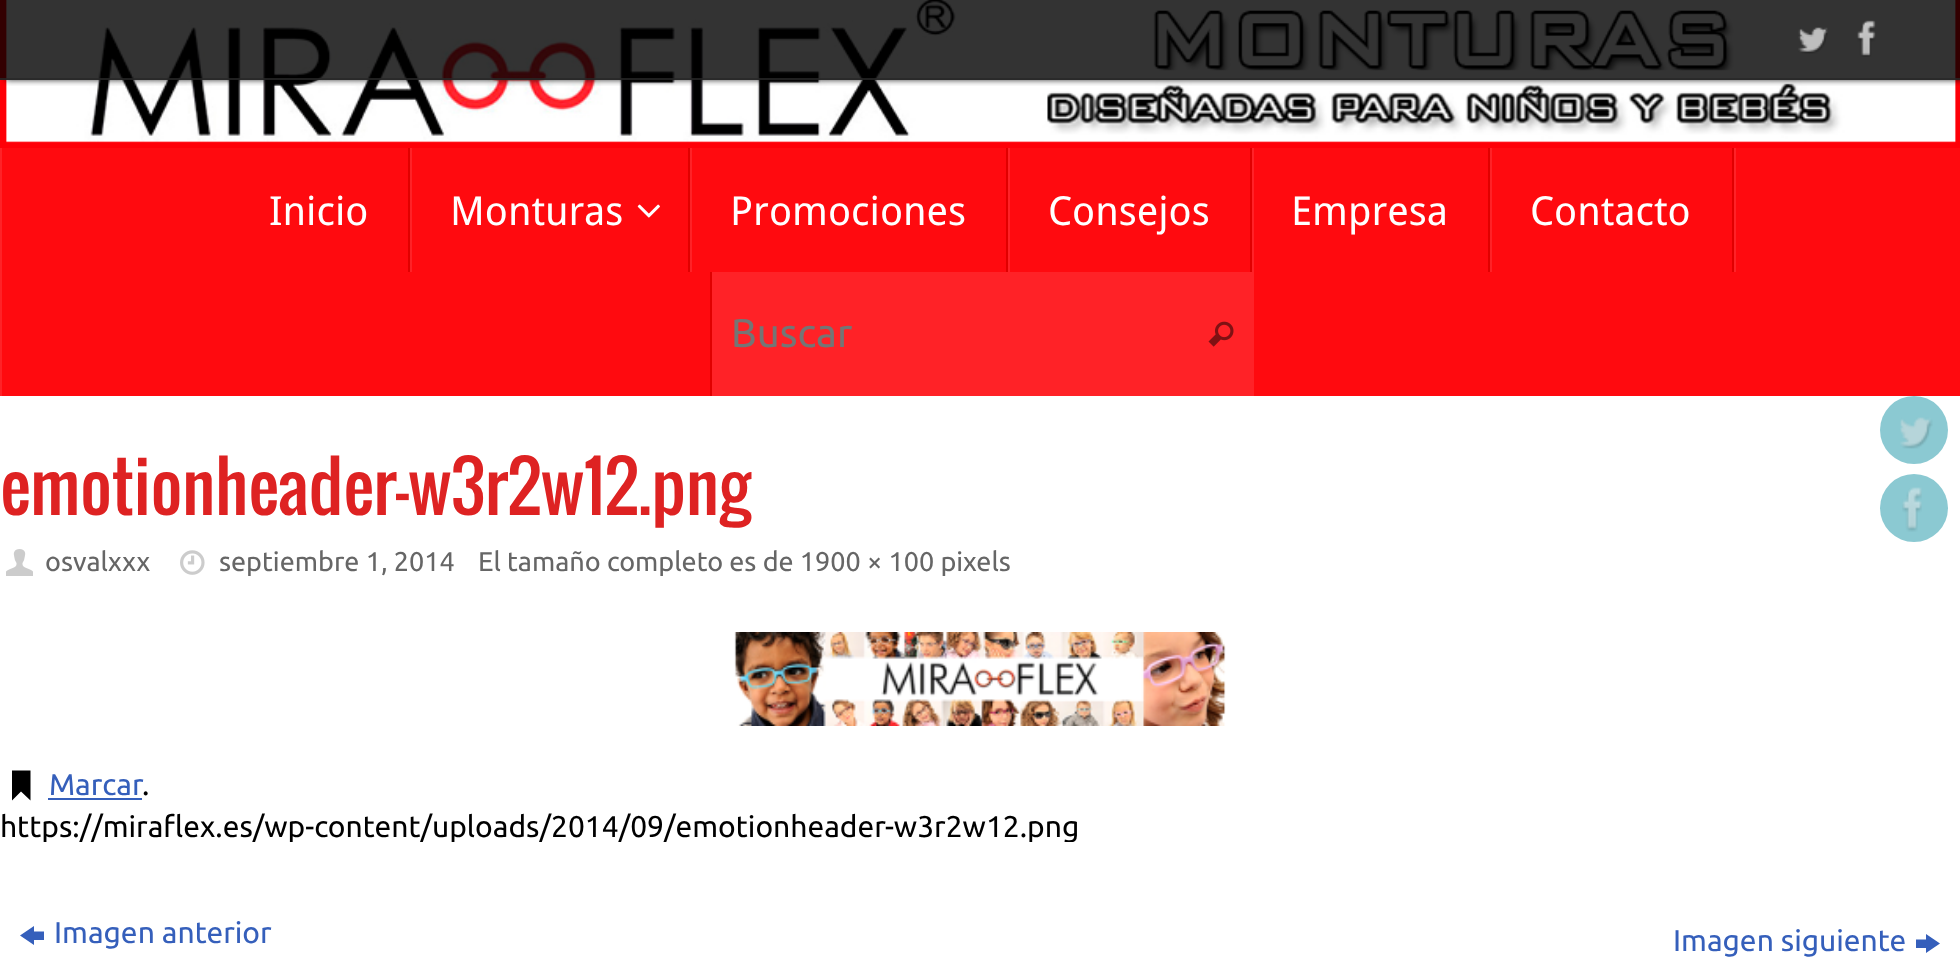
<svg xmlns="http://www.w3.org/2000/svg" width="1960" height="966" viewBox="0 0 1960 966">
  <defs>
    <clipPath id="clip1"><rect x="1" y="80" width="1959" height="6"/></clipPath>
    <filter id="blur1" x="-50%" y="-200%" width="200%" height="500%"><feGaussianBlur stdDeviation="3"/></filter>
    <clipPath id="clip2"><rect x="0" y="446" width="1960" height="396"/></clipPath>
  </defs>
  <rect width="100%" height="100%" fill="#ffffff"/>
  <image x="0" y="0" width="1960" height="148" href="img3.png"/>
  <g clip-path="url(#clip1)">
    <rect x="6" y="0" width="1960" height="80" fill="#000000" fill-opacity="0.8" filter="url(#blur1)"/>
  </g>
  <rect x="0" y="0" width="1960" height="80" fill="#000000" fill-opacity="0.8"/>
  <rect x="0" y="78" width="1960" height="2" fill="#282828" fill-opacity="0.8"/>
  <image x="1798" y="27" width="30" height="27" href="img1.png"/>
  <image x="1857" y="20" width="19" height="37" href="img2.png"/>
  <rect x="2" y="148" width="1958" height="248" fill="#ff0a0f"/>
  <rect x="0" y="148" width="2" height="248" fill="#ff2227"/>
  <rect x="410" y="148" width="2" height="124" fill="#ff2227"/>
  <rect x="408" y="148" width="2" height="124" fill="#e10000"/>
  <text x="269" y="225" font-family="Droid Sans" font-size="40" fill="#ffffff">Inicio</text>
  <rect x="690" y="148" width="2" height="124" fill="#ff2227"/>
  <rect x="688" y="148" width="2" height="124" fill="#e10000"/>
  <text x="450" y="225" font-family="Droid Sans" font-size="40" fill="#ffffff">Monturas</text>
  <image x="637" y="204" width="23" height="14" href="img4.png"/>
  <rect x="1008" y="148" width="2" height="124" fill="#ff2227"/>
  <rect x="1006" y="148" width="2" height="124" fill="#e10000"/>
  <text x="730" y="225" font-family="Droid Sans" font-size="40" fill="#ffffff">Promociones</text>
  <rect x="1252" y="148" width="2" height="124" fill="#ff2227"/>
  <rect x="1250" y="148" width="2" height="124" fill="#e10000"/>
  <text x="1048" y="225" font-family="Droid Sans" font-size="40" fill="#ffffff">Consejos</text>
  <rect x="1490" y="148" width="2" height="124" fill="#ff2227"/>
  <rect x="1488" y="148" width="2" height="124" fill="#e10000"/>
  <text x="1291" y="225" font-family="Droid Sans" font-size="40" fill="#ffffff">Empresa</text>
  <rect x="1734" y="148" width="2" height="124" fill="#ff2227"/>
  <rect x="1732" y="148" width="2" height="124" fill="#e10000"/>
  <text x="1530" y="225" font-family="Droid Sans" font-size="40" fill="#ffffff">Contacto</text>
  <rect x="712" y="272" width="542" height="124" fill="#ff2227"/>
  <rect x="710" y="272" width="2" height="124" fill="#e10000"/>
  <text x="731" y="347" font-family="Ubuntu" font-size="40" fill="#757575">Buscar</text>
  <image x="1208" y="321" width="26" height="26" href="img5.png"/>
  <text x="0" y="515" font-family="Oswald" font-size="68" fill="#de2222">emotionheader-w3r2w12.png</text>
  <image x="6" y="549" width="27" height="27" href="img6.png"/>
  <text x="45" y="571" font-family="Ubuntu" font-size="27" fill="#666666">osvalxxx</text>
  <image x="180" y="550" width="25" height="25" href="img7.png"/>
  <text x="219" y="571" font-family="Ubuntu" font-size="27" fill="#666666">septiembre 1, 2014</text>
  <text x="478" y="571" font-family="Ubuntu" font-size="27" fill="#666666">El tamaño completo es de 1900 × 100 pixels</text>
  <image x="734" y="632" width="492" height="94" href="img8.png"/>
  <path d="M12 797.5V770.5H30.5V800.5L21 791.5L12 800.5Z" fill="#000000"/>
  <text x="49" y="795" font-family="Ubuntu" font-size="30" fill="#355fbb">Marcar</text>
  <rect x="48" y="798" width="94" height="2" fill="#355fbb"/>
  <text x="142" y="795" font-family="Ubuntu" font-size="30" fill="#000000">.</text>
  <g clip-path="url(#clip2)">
    <text x="0" y="837" font-family="Ubuntu" font-size="30" fill="#000000">https://miraflex.es/wp-content/uploads/2014/09/emotionheader-w3r2w12.png</text>
  </g>
  <path d="M20 935.5L34 926V931.5H44V940H34V945Z" fill="#355fbb"/>
  <text x="54" y="943" font-family="Ubuntu" font-size="30" fill="#355fbb">Imagen anterior</text>
  <text x="1673" y="951" font-family="Ubuntu" font-size="30" fill="#355fbb">Imagen siguiente</text>
  <path d="M1916 948V939.5H1926V934L1940 943.5L1926 953V948Z" fill="#355fbb"/>
  <circle cx="1914" cy="430" r="34" fill="#8bc9d2"/>
  <image x="1900" y="417" width="33" height="32" href="img9.png"/>
  <circle cx="1914" cy="508" r="34" fill="#8bc9d2"/>
  <image x="1902" y="487" width="20" height="45" href="img10.png"/>
</svg>
